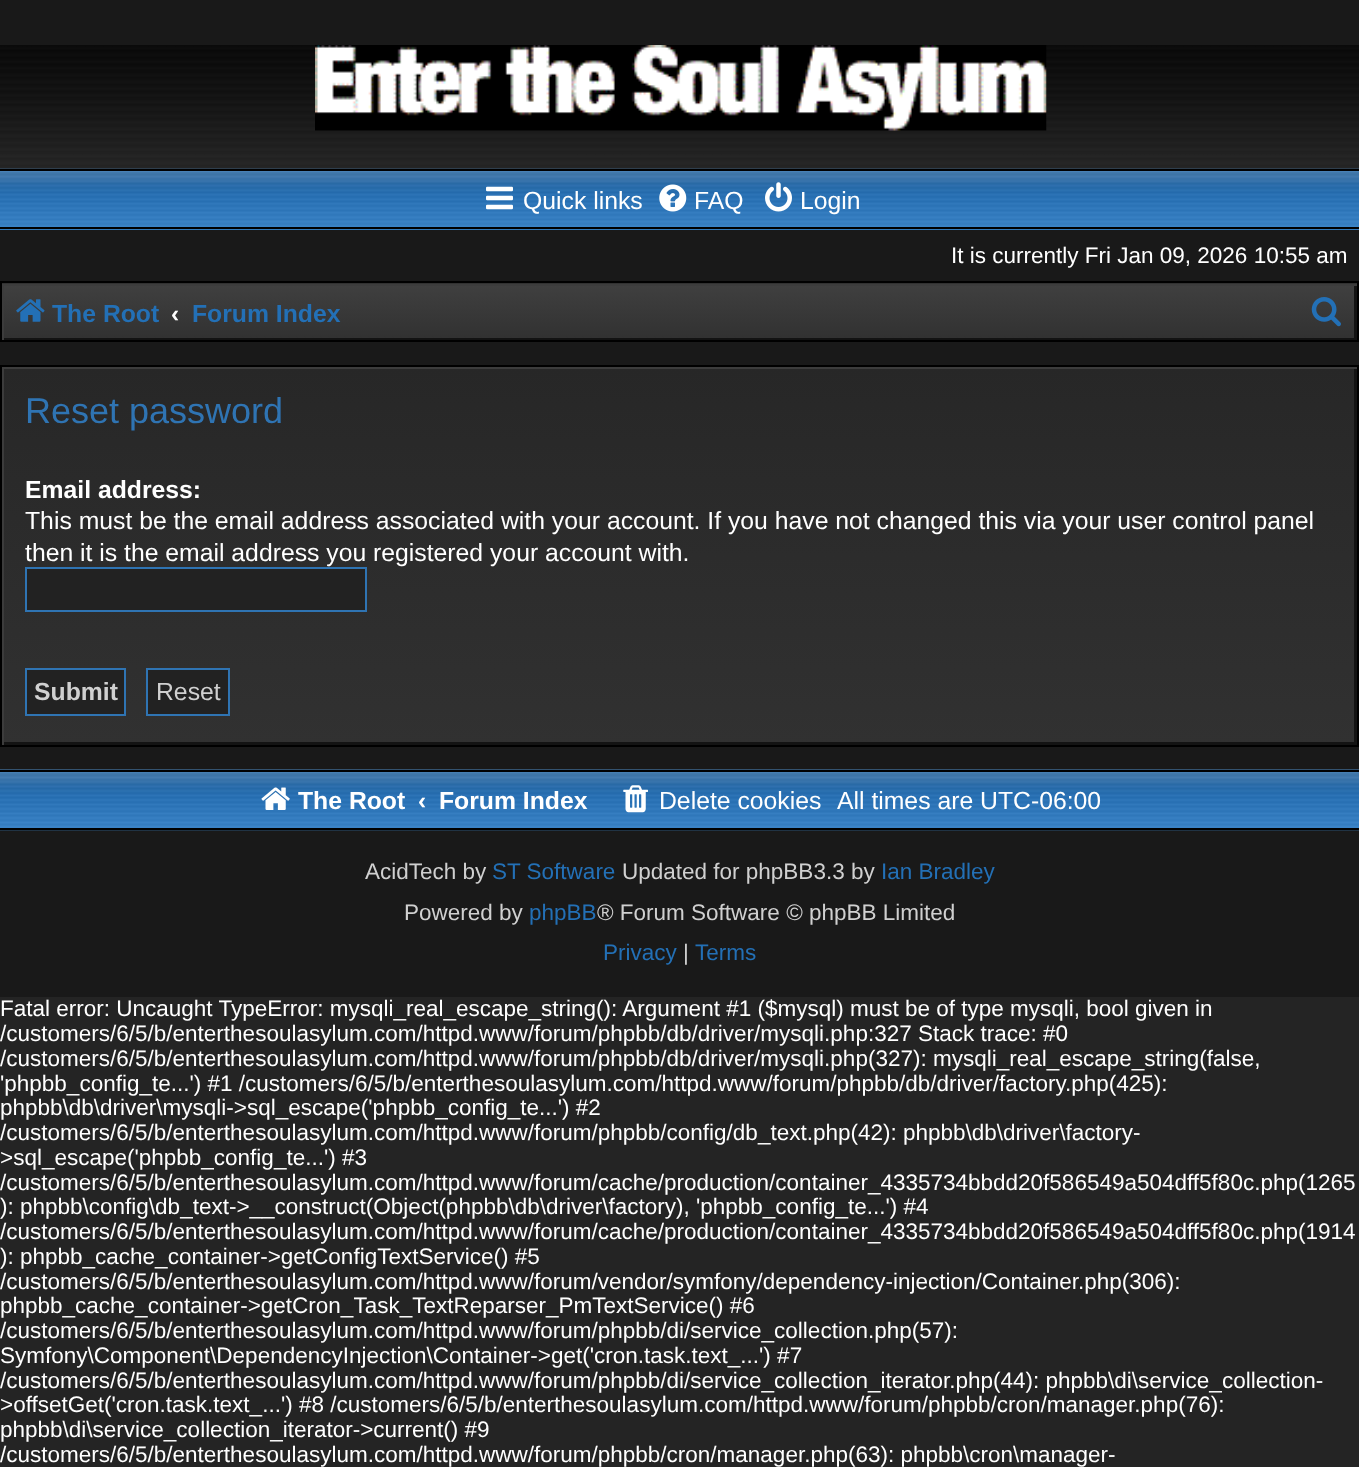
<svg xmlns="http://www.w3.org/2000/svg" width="1359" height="1467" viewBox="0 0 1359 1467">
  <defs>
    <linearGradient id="g1" gradientUnits="userSpaceOnUse" x1="680" y1="227" x2="680" y2="284"><stop offset="0" stop-color="#404040"/><stop offset="1" stop-color="#313131"/></linearGradient>
    <linearGradient id="g2" gradientUnits="userSpaceOnUse" x1="680" y1="283" x2="680" y2="340"><stop offset="0" stop-color="#404040"/><stop offset="1" stop-color="#313131"/></linearGradient>
    <clipPath id="clip1"><rect x="2" y="284" width="1355" height="56"/></clipPath>
    <linearGradient id="g3" gradientUnits="userSpaceOnUse" x1="680" y1="367" x2="680" y2="745"><stop offset="0" stop-color="#272727"/><stop offset="1" stop-color="#313131"/></linearGradient>
    <clipPath id="clip2"><rect x="2" y="367" width="1355" height="378"/></clipPath>
  </defs>
  <rect width="100%" height="100%" fill="#242424"/>
  <rect x="0" y="0" width="1359" height="997" fill="#191919"/>
  <image x="0" y="45" width="1359" height="124" href="img1.png"/>
  <image x="315" y="45" width="732" height="86" href="img2.png"/>
  <rect x="0" y="229" width="1359" height="1" fill="#2f74b3"/>
  <image x="0" y="168" width="1359" height="62" href="img3.png"/>
  <rect x="0" y="169" width="1359" height="2" fill="#000000"/>
  <rect x="0" y="227" width="1359" height="2" fill="#000000"/>
  <image x="486" y="186" width="27" height="24" href="img4.png"/>
  <text x="523" y="209" font-family="Liberation Sans" font-size="24.75" fill="#ffffff">Quick links</text>
  <image x="659" y="184" width="28" height="28" href="img5.png"/>
  <text x="694" y="209" font-family="Liberation Sans" font-size="24.75" fill="#ffffff">FAQ</text>
  <image x="765" y="182" width="27" height="30" href="img6.png"/>
  <text x="800" y="209" font-family="Liberation Sans" font-size="24.75" fill="#ffffff">Login</text>
  <text x="951" y="263" font-family="Liberation Sans" font-size="22.5" fill="#ffffff">It is currently Fri Jan 09, 2026 10:55 am</text>
  <rect x="0" y="283" width="1359" height="1" fill="url(#g1)"/>
  <rect x="4" y="286" width="1350" height="52" fill="url(#g2)"/>
  <g clip-path="url(#clip1)">
    <path d="M-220 61H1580V562H-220ZM0 281H1354V338H0Z" fill="#131313" fill-rule="evenodd"/>
    <path d="M-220 61H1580V562H-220ZM4 286H1359V342H4Z" fill="#3c3c3c" fill-rule="evenodd"/>
  </g>
  <rect x="1" y="282" width="1357" height="59" fill="none" stroke="#000000" stroke-width="2"/>
  <image x="16" y="299" width="29" height="23" href="img7.png"/>
  <text x="52" y="322" font-family="Liberation Sans" font-size="24.75" font-weight="bold" fill="#2370b6">The Root</text>
  <text x="171" y="322" font-family="Liberation Sans" font-size="24.75" font-weight="bold" fill="#ffffff">‹</text>
  <text x="192" y="322" font-family="Liberation Sans" font-size="24.75" font-weight="bold" fill="#2370b6">Forum Index</text>
  <image x="1311" y="297" width="30" height="30" href="img8.png"/>
  <rect x="4" y="369" width="1350" height="373" fill="url(#g3)"/>
  <g clip-path="url(#clip2)">
    <path d="M-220 144H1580V968H-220ZM0 364H1354V742H0Z" fill="#131313" fill-rule="evenodd"/>
    <path d="M-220 144H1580V968H-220ZM4 369H1359V747H4Z" fill="#3c3c3c" fill-rule="evenodd"/>
  </g>
  <rect x="1" y="366" width="1357" height="380" fill="none" stroke="#000000" stroke-width="2"/>
  <text x="25" y="423" font-family="Liberation Sans" font-size="36" fill="#2f74b3">Reset password</text>
  <text x="25" y="498" font-family="Liberation Sans" font-size="24.75" font-weight="bold" fill="#ffffff">Email address:</text>
  <text x="25" y="529" font-family="Liberation Sans" font-size="24.75" fill="#ffffff">This must be the email address associated with your account. If you have not changed this via your user control panel</text>
  <text x="25" y="561" font-family="Liberation Sans" font-size="24.75" fill="#ffffff">then it is the email address you registered your account with.</text>
  <rect x="26" y="568" width="340" height="43" fill="#222222" stroke="#2f74b3" stroke-width="2"/>
  <rect x="26" y="669" width="99" height="46" fill="#222222" stroke="#2f74b3" stroke-width="2"/>
  <text x="34" y="700" font-family="Liberation Sans" font-size="24.75" font-weight="bold" fill="#d0d0d0">Submit</text>
  <rect x="147" y="669" width="82" height="46" fill="#222222" stroke="#2f74b3" stroke-width="2"/>
  <text x="156" y="700" font-family="Liberation Sans" font-size="24.75" fill="#d0d0d0">Reset</text>
  <image x="0" y="769" width="1359" height="62" href="img9.png"/>
  <rect x="0" y="770" width="1359" height="2" fill="#000000"/>
  <rect x="0" y="828" width="1359" height="2" fill="#000000"/>
  <image x="261" y="787" width="29" height="23" href="img10.png"/>
  <text x="298" y="809" font-family="Liberation Sans" font-size="24.75" font-weight="bold" fill="#ffffff">The Root</text>
  <text x="418" y="809" font-family="Liberation Sans" font-size="24.75" font-weight="bold" fill="#ffffff">‹</text>
  <text x="439" y="809" font-family="Liberation Sans" font-size="24.75" font-weight="bold" fill="#ffffff">Forum Index</text>
  <image x="623" y="785" width="25" height="28" href="img11.png"/>
  <text x="659" y="809" font-family="Liberation Sans" font-size="24.75" fill="#ffffff">Delete cookies</text>
  <text x="837" y="809" font-family="Liberation Sans" font-size="24.75" fill="#ffffff">All times are UTC-06:00</text>
  <text x="365" y="879" font-family="Liberation Sans" font-size="22.5" fill="#d0d0d0">AcidTech by</text>
  <text x="492" y="879" font-family="Liberation Sans" font-size="22.5" fill="#2370b6">ST Software</text>
  <text x="622" y="879" font-family="Liberation Sans" font-size="22.5" fill="#d0d0d0">Updated for phpBB3.3 by</text>
  <text x="881" y="879" font-family="Liberation Sans" font-size="22.5" fill="#2370b6">Ian Bradley</text>
  <text x="404" y="920" font-family="Liberation Sans" font-size="22.5" fill="#d0d0d0">Powered by</text>
  <text x="529" y="920" font-family="Liberation Sans" font-size="22.5" fill="#2370b6">phpBB</text>
  <text x="597" y="920" font-family="Liberation Sans" font-size="22.5" fill="#d0d0d0">® Forum Software © phpBB Limited</text>
  <text x="603" y="960" font-family="Liberation Sans" font-size="22.5" fill="#2370b6">Privacy</text>
  <text x="683" y="960" font-family="Liberation Sans" font-size="22.5" fill="#d0d0d0">|</text>
  <text x="695" y="960" font-family="Liberation Sans" font-size="22.5" fill="#2370b6">Terms</text>
  <text x="0" y="1016" font-family="Liberation Sans" font-size="22.5" fill="#ffffff">Fatal error: Uncaught TypeError: mysqli_real_escape_string(): Argument #1 ($mysql) must be of type mysqli, bool given in</text>
  <text x="0" y="1041" font-family="Liberation Sans" font-size="22.5" fill="#ffffff">/customers/6/5/b/enterthesoulasylum.com/httpd.www/forum/phpbb/db/driver/mysqli.php:327 Stack trace: #0</text>
  <text x="0" y="1066" font-family="Liberation Sans" font-size="22.5" fill="#ffffff">/customers/6/5/b/enterthesoulasylum.com/httpd.www/forum/phpbb/db/driver/mysqli.php(327): mysqli_real_escape_string(false,</text>
  <text x="0" y="1091" font-family="Liberation Sans" font-size="22.5" fill="#ffffff">'phpbb_config_te...') #1 /customers/6/5/b/enterthesoulasylum.com/httpd.www/forum/phpbb/db/driver/factory.php(425):</text>
  <text x="0" y="1115" font-family="Liberation Sans" font-size="22.5" fill="#ffffff">phpbb\db\driver\mysqli-&gt;sql_escape('phpbb_config_te...') #2</text>
  <text x="0" y="1140" font-family="Liberation Sans" font-size="22.5" fill="#ffffff">/customers/6/5/b/enterthesoulasylum.com/httpd.www/forum/phpbb/config/db_text.php(42): phpbb\db\driver\factory-</text>
  <text x="0" y="1165" font-family="Liberation Sans" font-size="22.5" fill="#ffffff">&gt;sql_escape('phpbb_config_te...') #3</text>
  <text x="0" y="1190" font-family="Liberation Sans" font-size="22.5" fill="#ffffff">/customers/6/5/b/enterthesoulasylum.com/httpd.www/forum/cache/production/container_4335734bbdd20f586549a504dff5f80c.php(1265</text>
  <text x="0" y="1214" font-family="Liberation Sans" font-size="22.5" fill="#ffffff">): phpbb\config\db_text-&gt;__construct(Object(phpbb\db\driver\factory), 'phpbb_config_te...') #4</text>
  <text x="0" y="1239" font-family="Liberation Sans" font-size="22.5" fill="#ffffff">/customers/6/5/b/enterthesoulasylum.com/httpd.www/forum/cache/production/container_4335734bbdd20f586549a504dff5f80c.php(1914</text>
  <text x="0" y="1264" font-family="Liberation Sans" font-size="22.5" fill="#ffffff">): phpbb_cache_container-&gt;getConfigTextService() #5</text>
  <text x="0" y="1289" font-family="Liberation Sans" font-size="22.5" fill="#ffffff">/customers/6/5/b/enterthesoulasylum.com/httpd.www/forum/vendor/symfony/dependency-injection/Container.php(306):</text>
  <text x="0" y="1313" font-family="Liberation Sans" font-size="22.5" fill="#ffffff">phpbb_cache_container-&gt;getCron_Task_TextReparser_PmTextService() #6</text>
  <text x="0" y="1338" font-family="Liberation Sans" font-size="22.5" fill="#ffffff">/customers/6/5/b/enterthesoulasylum.com/httpd.www/forum/phpbb/di/service_collection.php(57):</text>
  <text x="0" y="1363" font-family="Liberation Sans" font-size="22.5" fill="#ffffff">Symfony\Component\DependencyInjection\Container-&gt;get('cron.task.text_...') #7</text>
  <text x="0" y="1388" font-family="Liberation Sans" font-size="22.5" fill="#ffffff">/customers/6/5/b/enterthesoulasylum.com/httpd.www/forum/phpbb/di/service_collection_iterator.php(44): phpbb\di\service_collection-</text>
  <text x="0" y="1412" font-family="Liberation Sans" font-size="22.5" fill="#ffffff">&gt;offsetGet('cron.task.text_...') #8 /customers/6/5/b/enterthesoulasylum.com/httpd.www/forum/phpbb/cron/manager.php(76):</text>
  <text x="0" y="1437" font-family="Liberation Sans" font-size="22.5" fill="#ffffff">phpbb\di\service_collection_iterator-&gt;current() #9</text>
  <text x="0" y="1462" font-family="Liberation Sans" font-size="22.5" fill="#ffffff">/customers/6/5/b/enterthesoulasylum.com/httpd.www/forum/phpbb/cron/manager.php(63): phpbb\cron\manager-</text>
</svg>
